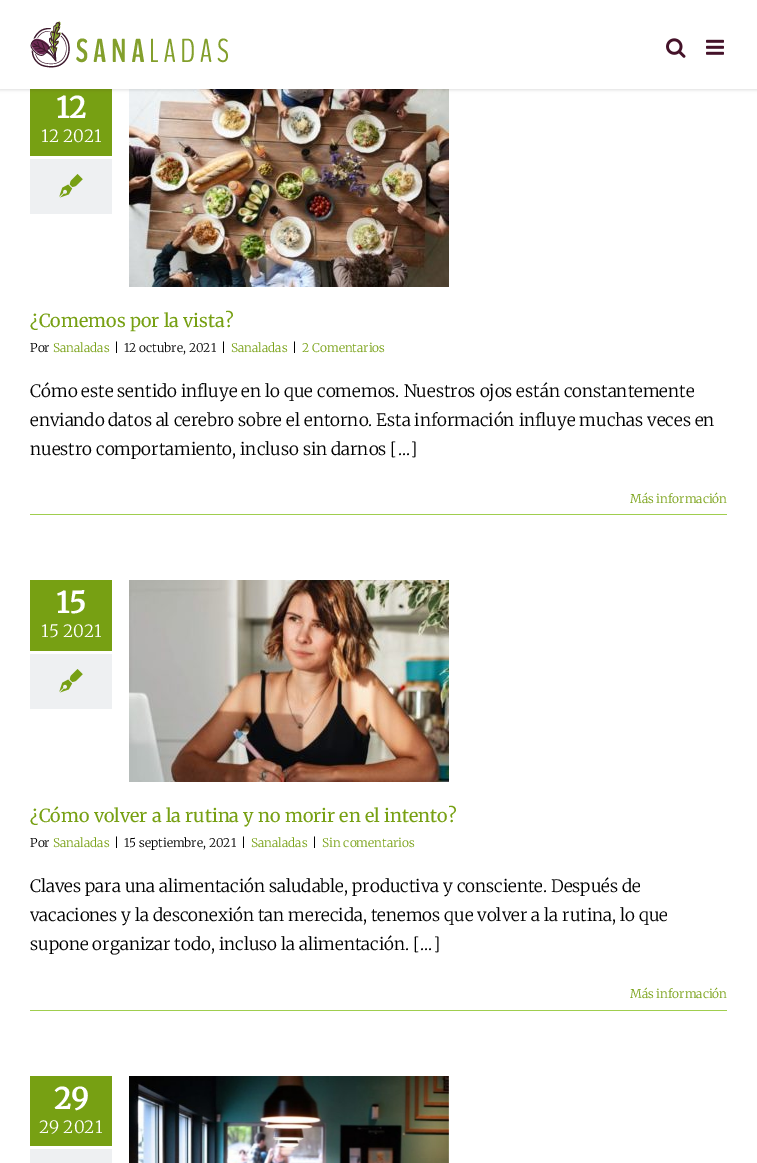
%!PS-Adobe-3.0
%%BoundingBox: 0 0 757 1163
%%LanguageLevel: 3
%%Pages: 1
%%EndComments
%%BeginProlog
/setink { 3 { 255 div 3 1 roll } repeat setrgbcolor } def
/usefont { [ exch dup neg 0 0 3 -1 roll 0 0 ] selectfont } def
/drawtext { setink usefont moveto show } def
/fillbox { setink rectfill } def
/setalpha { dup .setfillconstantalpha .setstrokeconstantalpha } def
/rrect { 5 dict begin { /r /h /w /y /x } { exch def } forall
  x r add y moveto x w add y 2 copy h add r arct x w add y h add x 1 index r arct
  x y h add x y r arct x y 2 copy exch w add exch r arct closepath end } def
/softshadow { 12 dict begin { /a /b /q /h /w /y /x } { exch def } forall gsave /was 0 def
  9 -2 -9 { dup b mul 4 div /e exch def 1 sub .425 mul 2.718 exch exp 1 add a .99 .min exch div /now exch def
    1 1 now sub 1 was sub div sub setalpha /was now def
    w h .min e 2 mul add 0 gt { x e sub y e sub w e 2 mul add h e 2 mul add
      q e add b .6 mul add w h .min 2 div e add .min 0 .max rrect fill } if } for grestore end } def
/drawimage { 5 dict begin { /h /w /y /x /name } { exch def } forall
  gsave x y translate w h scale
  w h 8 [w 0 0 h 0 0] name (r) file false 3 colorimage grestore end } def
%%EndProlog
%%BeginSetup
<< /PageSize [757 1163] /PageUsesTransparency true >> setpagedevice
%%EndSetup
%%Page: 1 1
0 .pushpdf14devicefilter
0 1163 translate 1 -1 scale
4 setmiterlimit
0 0 757 1163 255 255 255 fillbox
30 89 82 67 119 160 19 fillbox
(assets/img5.rgb) 129 89 320 198 drawimage
0 0 0 setink
0 1 757 89 0 1.5 0.12 softshadow
0 0 757 89 255 255 255 fillbox
(assets/img1.rgb) 30 21 198 47 drawimage
(assets/img2.rgb) 666 38 20 20 drawimage
(assets/img3.rgb) 706 39 18 16 drawimage
(12) 56 118 /Merriweather-Bold 29 255 255 255 drawtext
(12 2021) 41 142 /Merriweather-Light 17 255 255 255 drawtext
30 159 82 55 238 240 242 fillbox
(assets/img4.rgb) 59 174 24 24 drawimage
(¿Comemos por la vista?) 30 327 /Merriweather-Regular 18 119 160 19 drawtext
(Por) 30 352 /Merriweather-Light 12 0 0 0 drawtext
(Sanaladas) 53 352 /Merriweather-Light 12 119 160 19 drawtext
(|) 114 352 /Merriweather-Light 12 0 0 0 drawtext
(12 octubre, 2021) 124 352 /Merriweather-Light 12 0 0 0 drawtext
(|) 221 352 /Merriweather-Light 12 0 0 0 drawtext
(Sanaladas) 231 352 /Merriweather-Light 12 119 160 19 drawtext
(|) 292 352 /Merriweather-Light 12 0 0 0 drawtext
(2 Comentarios) 302 352 /Merriweather-Light 12 119 160 19 drawtext
(Cómo este sentido influye en lo que comemos. Nuestros ojos están constantemente) 30 397 /Merriweather-Light 17 0 0 0 drawtext
(enviando datos al cerebro sobre el entorno. Esta información influye muchas veces en) 30 426 /Merriweather-Light 17 0 0 0 drawtext
(nuestro comportamiento, incluso sin darnos [...]) 30 455 /Merriweather-Light 17 0 0 0 drawtext
30 514 697 1 160 206 78 fillbox
(Más información) 630 503 /Merriweather-Light 12 119 160 19 drawtext
30 580 82 71 119 160 19 fillbox
(15) 56 613 /Merriweather-Bold 29 255 255 255 drawtext
(15 2021) 41 637 /Merriweather-Light 17 255 255 255 drawtext
30 654 82 55 238 240 242 fillbox
(assets/img4.rgb) 59 669 24 24 drawimage
(assets/img6.rgb) 129 580 320 202 drawimage
(¿Cómo volver a la rutina y no morir en el intento?) 30 822 /Merriweather-Regular 18 119 160 19 drawtext
(Por) 30 847 /Merriweather-Light 12 0 0 0 drawtext
(Sanaladas) 53 847 /Merriweather-Light 12 119 160 19 drawtext
(|) 114 847 /Merriweather-Light 12 0 0 0 drawtext
(15 septiembre, 2021) 124 847 /Merriweather-Light 12 0 0 0 drawtext
(|) 241 847 /Merriweather-Light 12 0 0 0 drawtext
(Sanaladas) 251 847 /Merriweather-Light 12 119 160 19 drawtext
(|) 312 847 /Merriweather-Light 12 0 0 0 drawtext
(Sin comentarios) 322 847 /Merriweather-Light 12 119 160 19 drawtext
(Claves para una alimentación saludable, productiva y consciente. Después de) 30 892 /Merriweather-Light 17 0 0 0 drawtext
(vacaciones y la desconexión tan merecida, tenemos que volver a la rutina, lo que) 30 921 /Merriweather-Light 17 0 0 0 drawtext
(supone organizar todo, incluso la alimentación. [...]) 30 950 /Merriweather-Light 17 0 0 0 drawtext
30 1010 697 1 160 206 78 fillbox
(Más información) 630 998 /Merriweather-Light 12 119 160 19 drawtext
30 1076 82 70 119 160 19 fillbox
(29) 54 1109 /Merriweather-Bold 29 255 255 255 drawtext
(29 2021) 39 1133 /Merriweather-Light 17 255 255 255 drawtext
30 1149 82 14 238 240 242 fillbox
(assets/img7.rgb) 129 1076 320 87 drawimage
.poppdf14devicefilter showpage
%%EOF
